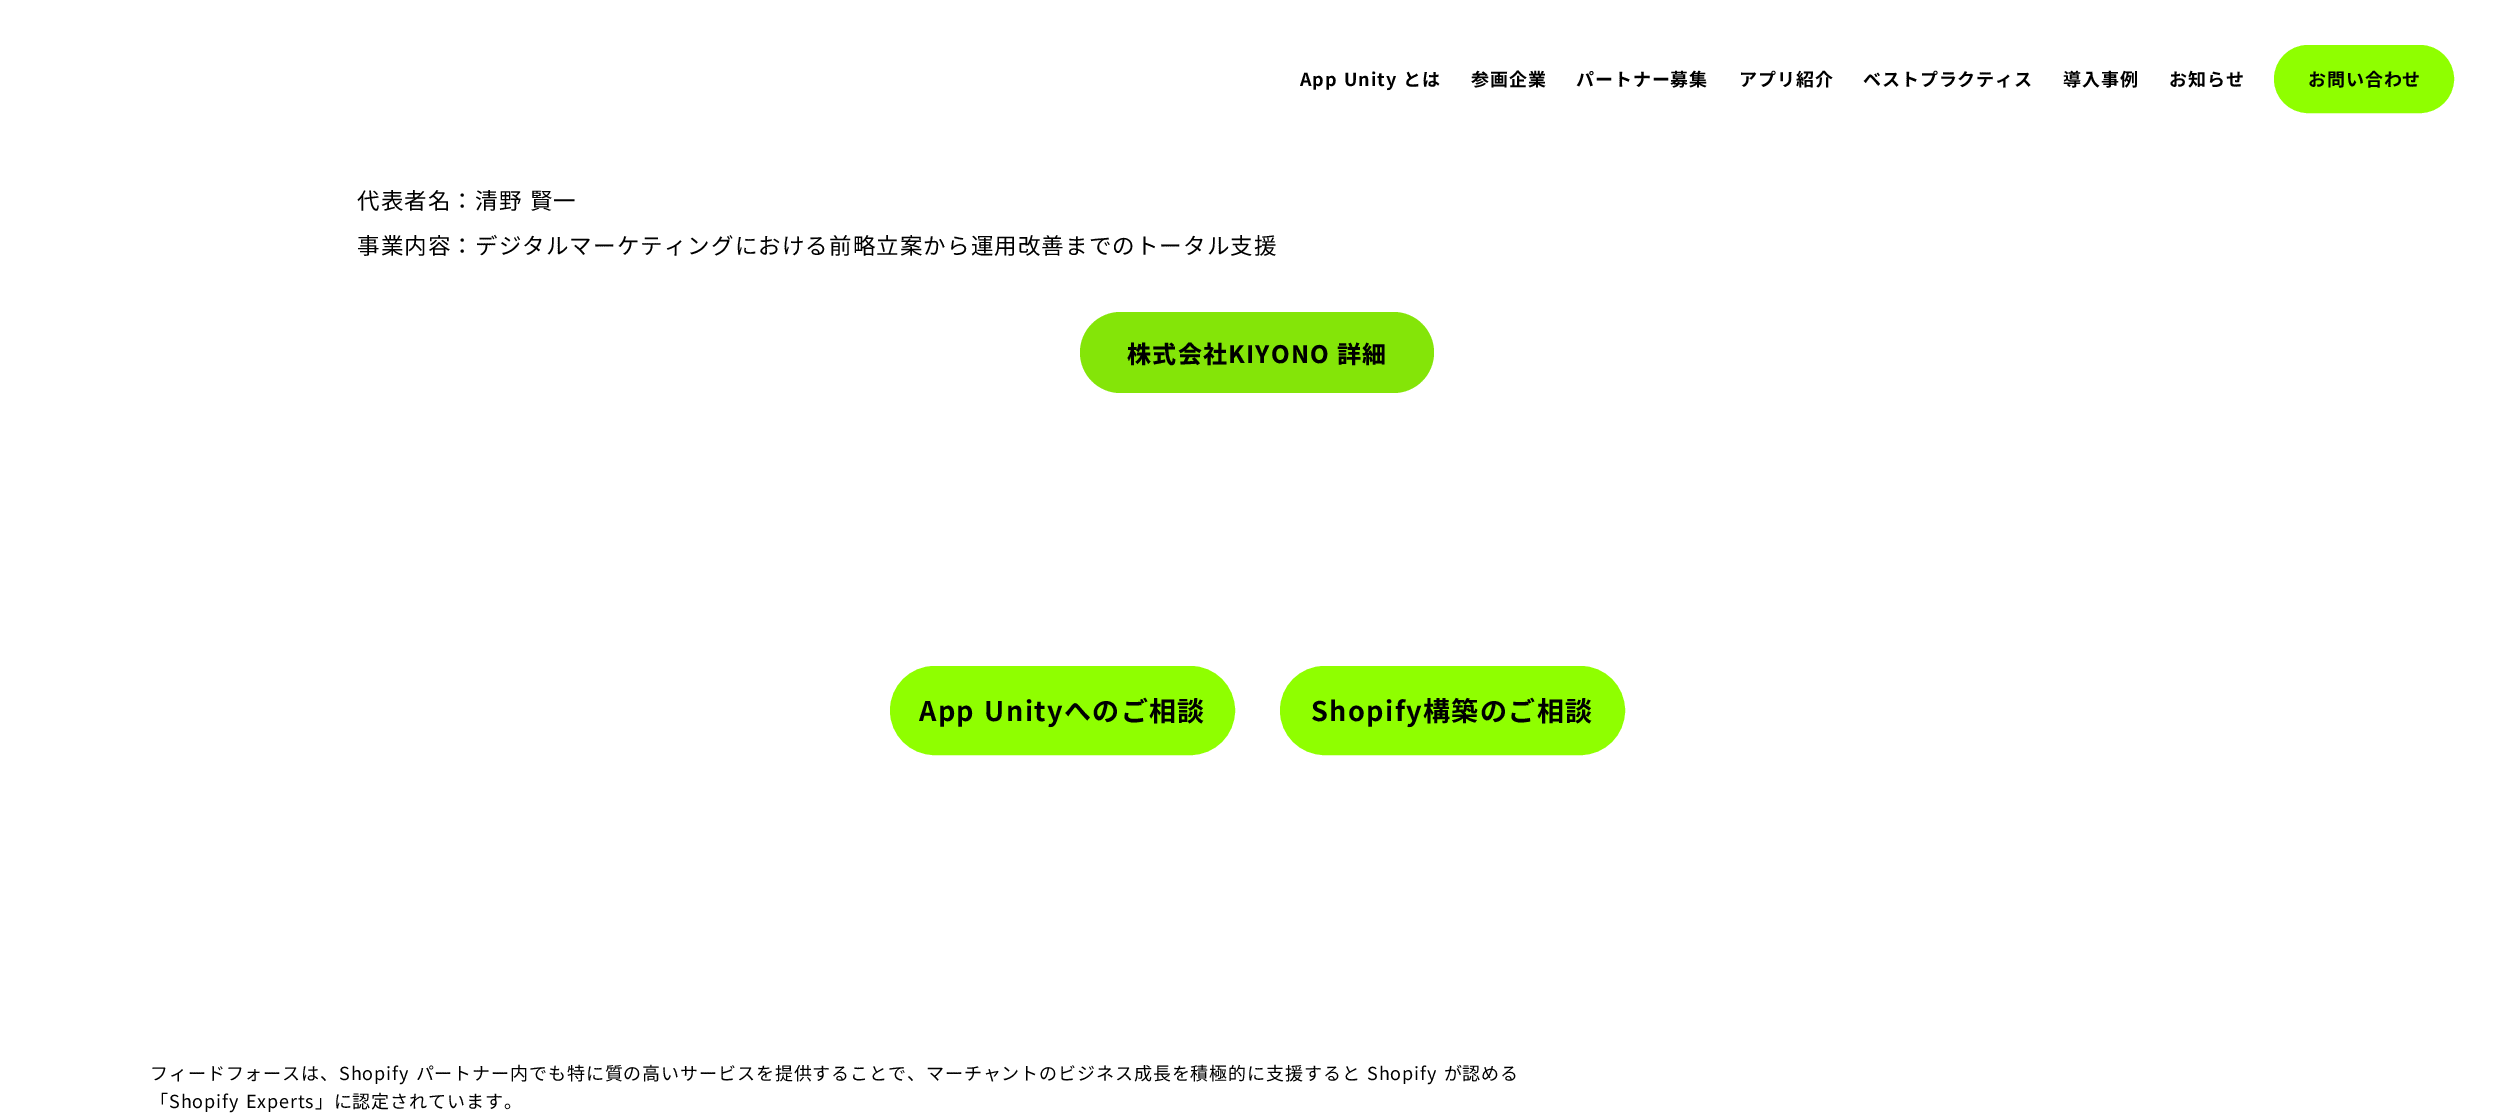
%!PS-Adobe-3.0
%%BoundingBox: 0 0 2513 1120
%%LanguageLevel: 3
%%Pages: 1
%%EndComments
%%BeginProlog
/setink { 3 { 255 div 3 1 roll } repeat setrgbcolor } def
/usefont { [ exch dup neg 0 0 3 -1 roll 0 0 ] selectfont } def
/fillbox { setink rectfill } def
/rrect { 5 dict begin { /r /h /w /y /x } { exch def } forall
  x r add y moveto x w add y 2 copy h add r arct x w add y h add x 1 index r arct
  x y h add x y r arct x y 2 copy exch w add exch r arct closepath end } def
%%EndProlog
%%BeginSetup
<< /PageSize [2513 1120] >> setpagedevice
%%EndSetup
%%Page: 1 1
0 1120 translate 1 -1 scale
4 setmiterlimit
0 0 2513 1120 255 255 255 fillbox
/NotoSansJP-Bold 18 usefont
0 0 0 setink
1300 86 moveto 1.5 0 32 0.9 0 (App Unity とは) awidthshow
1471 86 moveto 0.9 0 (参画企業) ashow
1576 86 moveto 0.9 0 (パートナー募集) ashow
1739 86 moveto 0.9 0 (アプリ紹介) ashow
1863 86 moveto 0.9 0 (ベストプラクティス) ashow
2063 86 moveto 0.9 0 (導入事例) ashow
2169 86 moveto 0.9 0 (お知らせ) ashow
143 255 0 setink
2275.5 46.5 177 65 32.5 rrect gsave fill grestore
3 setlinewidth
stroke
0 0 0 setink
2308 86 moveto 0.9 0 (お問い合わせ) ashow
/NotoSansJP-Regular 22.5 usefont
357 209 moveto 1.5 0 32 1.1 0 (代表者名：清野 賢一) awidthshow
357 254 moveto 1.1 0 (事業内容：デジタルマーケティングにおける前略立案から運用改善までのトータル支援) ashow
132 229 8 setink
1080 312 354 81 40.5 rrect fill
/NotoSansJP-ExtraBold 24 usefont
0 0 0 setink
1127 363 moveto 1.25 0 (株式会社KIYONO 詳細) ashow
143 255 0 setink
891.5 667.5 342 86 43 rrect gsave fill grestore
stroke
/NotoSansJP-Bold 27 usefont
0 0 0 setink
919 721 moveto 1.5 0 32 1.4 0 (App Unityへのご相談) awidthshow
143 255 0 setink
1281.5 667.5 342 86 43 rrect gsave fill grestore
stroke
0 0 0 setink
1311 721 moveto 1.4 0 (Shopify構築のご相談) ashow
/NotoSansJP-Regular 18 usefont
150 1080 moveto 1.5 0 32 0.9 0 (フィードフォースは、Shopify パートナー内でも特に質の高いサービスを提供することで、マーチャントのビジネス成長を積極的に支援すると Shopify が認める) awidthshow
150 1108 moveto 1.5 0 32 0.9 0 (「Shopify Experts」に認定されています。) awidthshow
showpage
%%EOF
